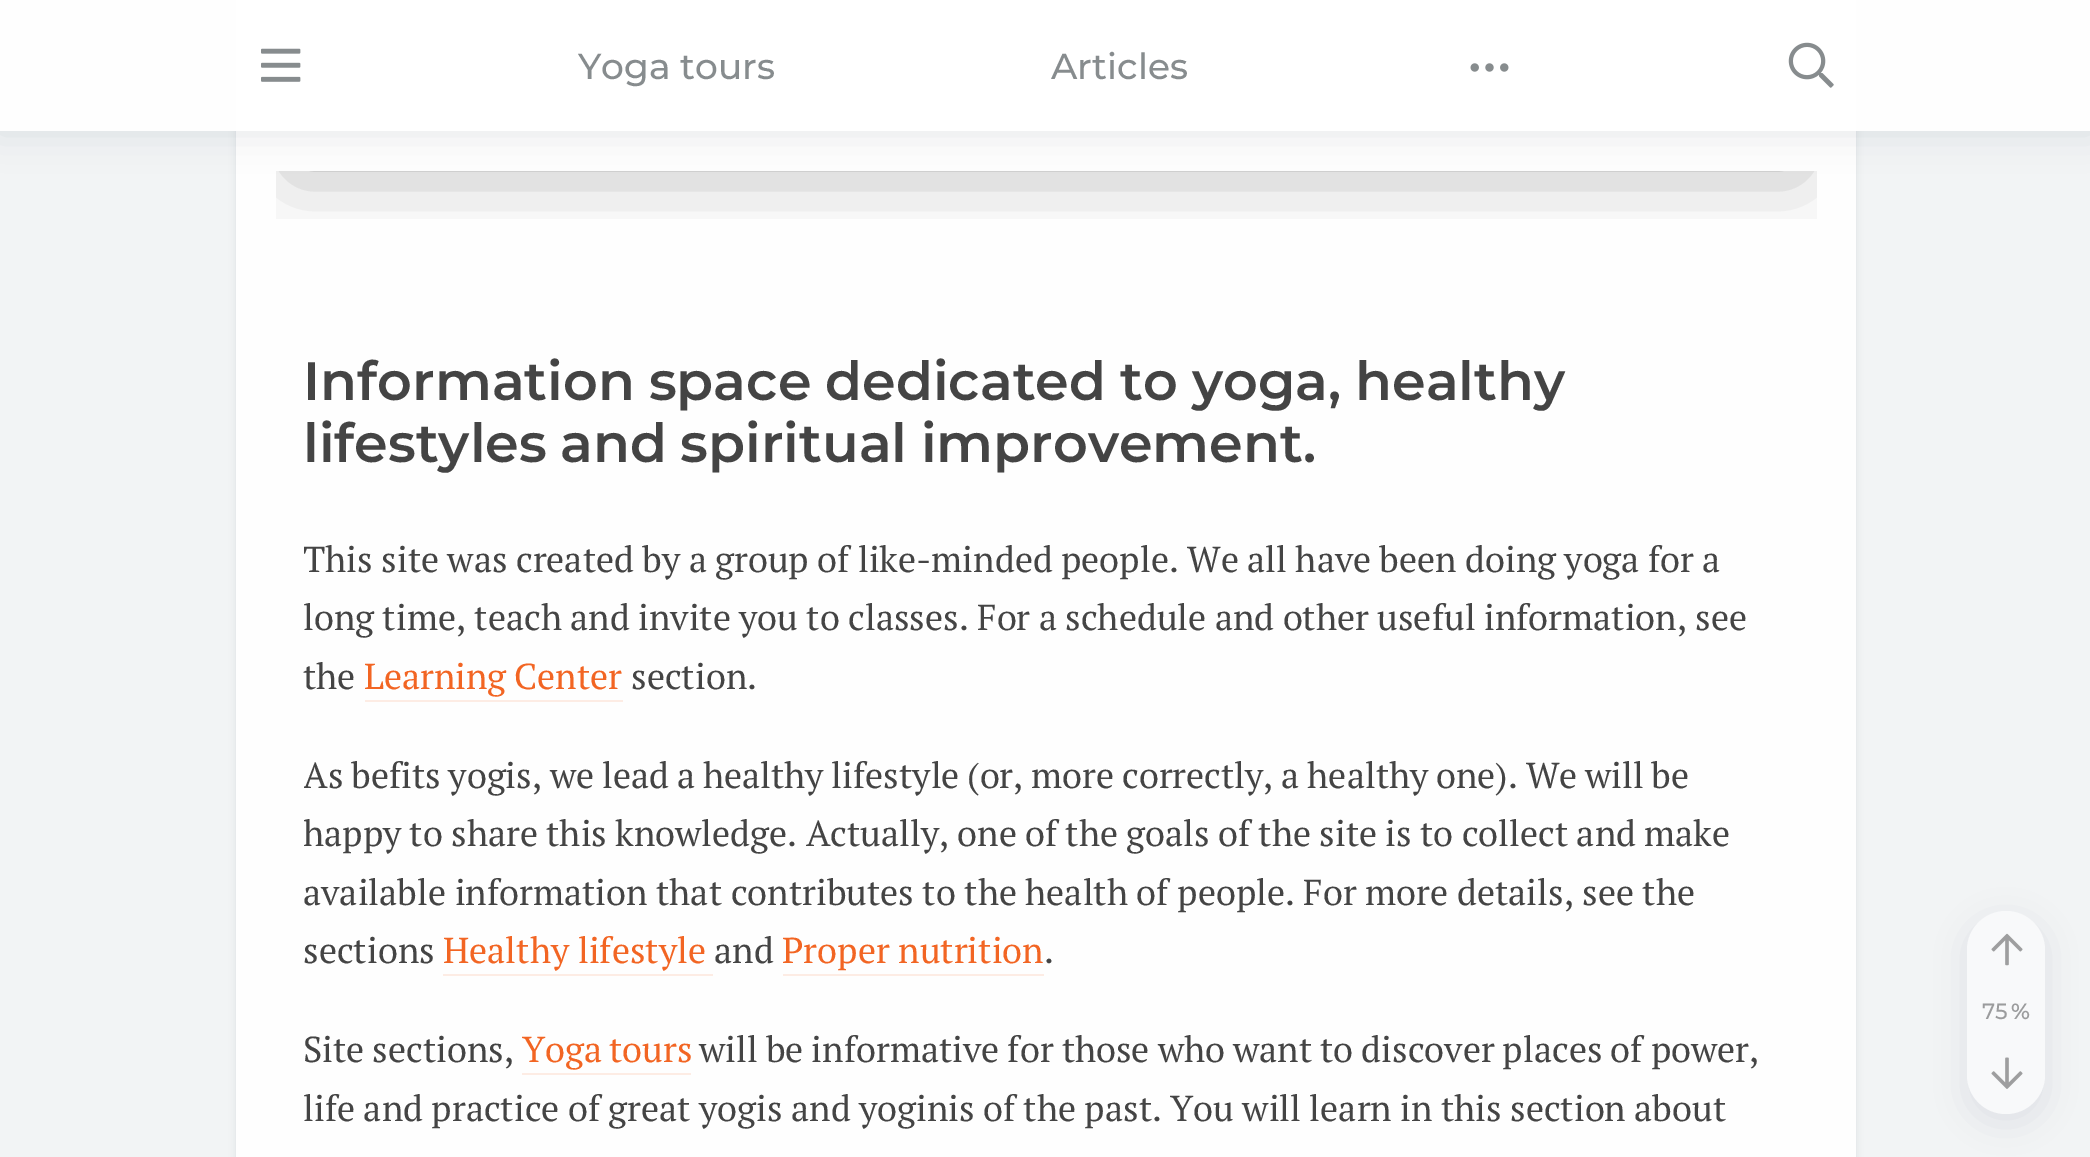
%!PS-Adobe-3.0
%%BoundingBox: 0 0 2090 1157
%%LanguageLevel: 3
%%Pages: 1
%%EndComments
%%BeginProlog
/setink { 3 { 255 div 3 1 roll } repeat setrgbcolor } def
/usefont { [ exch dup neg 0 0 3 -1 roll 0 0 ] selectfont } def
/drawtext { setink usefont moveto show } def
/fillbox { setink rectfill } def
/setalpha { dup .setfillconstantalpha .setstrokeconstantalpha } def
/rrect { 5 dict begin { /r /h /w /y /x } { exch def } forall
  x r add y moveto x w add y 2 copy h add r arct x w add y h add x 1 index r arct
  x y h add x y r arct x y 2 copy exch w add exch r arct closepath end } def
/softshadow { 12 dict begin { /a /b /q /h /w /y /x } { exch def } forall gsave /was 0 def
  9 -2 -9 { dup b mul 4 div /e exch def 1 sub .425 mul 2.718 exch exp 1 add a .99 .min exch div /now exch def
    1 1 now sub 1 was sub div sub setalpha /was now def
    w h .min e 2 mul add 0 gt { x e sub y e sub w e 2 mul add h e 2 mul add
      q e add b .6 mul add w h .min 2 div e add .min 0 .max rrect fill } if } for grestore end } def
/drawimage { 5 dict begin { /h /w /y /x /name } { exch def } forall
  gsave x y translate w h scale
  w h 8 [w 0 0 h 0 0] name (r) file false 3 colorimage grestore end } def
%%EndProlog
%%BeginSetup
<< /PageSize [2090 1157] /PageUsesTransparency true >> setpagedevice
%%EndSetup
%%Page: 1 1
0 .pushpdf14devicefilter
0 1157 translate 1 -1 scale
4 setmiterlimit
0 0 2090 1157 242 244 245 fillbox
222 225 227 setink
236 -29 1620 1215 18 3.5 1 softshadow
236 0 1620 1157 254 254 254 fillbox
gsave
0 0 moveto 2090 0 lineto 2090 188 lineto 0 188 lineto closepath 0 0 moveto 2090 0 lineto 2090 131 lineto 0 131 lineto closepath eoclip newpath
0 26 52 setink
-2 -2 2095 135 0 18 0.1 softshadow
grestore
gsave
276 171 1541 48 rectclip
0 0 0 setink
302 135 1489 27 0 39.5 0.35 softshadow
grestore
0.95 setalpha
0 0 2090 131 255 255 255 fillbox
1 setalpha
(assets/img1.rgb) 261 48 40 34 drawimage
(Yoga tours) 578 79 /Montserrat-Medium 36 135 140 142 drawtext
(Articles) 1051 79 /Montserrat-Medium 36 135 140 142 drawtext
(assets/img2.rgb) 1470 63 39 9 drawimage
(assets/img3.rgb) 1788 42 46 46 drawimage
/Montserrat-SemiBold 54 usefont
68 68 68 setink
303 400 moveto -1 0 32 (Information space dedicated to yoga, healthy) widthshow
303 462 moveto -1.5 0 32 (lifestyles and spiritual improvement.) widthshow
gsave
304 351 1485 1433 rectclip
/PTSerif-Regular 36 usefont
303 572 moveto -0.4 0 32 (This site was created by a group of like-minded people. We all have been doing yoga for a) widthshow
grestore
/PTSerif-Regular 36 usefont
303 630 moveto -0.4 0 32 (long time, teach and invite you to classes. For a schedule and other useful information, see) widthshow
(the) 303 689 /PTSerif-Regular 36 68 68 68 drawtext
242 101 35 setink
364 689 moveto -1 0 32 (Learning Center) widthshow
365 700 258 2 253 236 228 fillbox
(section.) 631 689 /PTSerif-Regular 36 68 68 68 drawtext
gsave
304 351 1485 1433 rectclip
303 788 moveto -1 0 32 (As befits yogis, we lead a healthy lifestyle \(or, more correctly, a healthy one\). We will be) widthshow
303 846 moveto -0.5 0 32 (happy to share this knowledge. Actually, one of the goals of the site is to collect and make) widthshow
grestore
303 905 moveto -0.25 0 32 (available information that contributes to the health of people. For more details, see the) widthshow
(sections) 303 963 /PTSerif-Regular 36 68 68 68 drawtext
(Healthy lifestyle) 443 963 /PTSerif-Regular 36 242 101 35 drawtext
443 974 270 2 253 236 228 fillbox
(and) 714 963 /PTSerif-Regular 36 68 68 68 drawtext
(Proper nutrition) 782 963 /PTSerif-Regular 36 242 101 35 drawtext
783 974 261 2 253 236 228 fillbox
(.) 1044 963 /PTSerif-Regular 36 68 68 68 drawtext
303 1062 moveto -1 0 32 (Site sections,) widthshow
242 101 35 setink
522 1062 moveto -2 0 32 (Yoga tours) widthshow
522 1073 169 2 253 236 228 fillbox
68 68 68 setink
699 1062 moveto -0.75 0 32 (will be informative for those who want to discover places of power,) widthshow
303 1121 moveto -0.4 0 32 (life and practice of great yogis and yoginis of the past. You will learn in this section about) widthshow
121 135 149 setink
1964 918 84 207 42 18 0.16 softshadow
248 249 250 setink
1967 911 78 203 39 rrect fill
(assets/img4.rgb) 1991 933 32 33 drawimage
(75) 1982 1019 /Montserrat-Medium 22 155 156 157 drawtext
(%) 2011 1019 /Montserrat-SemiBold 22 155 156 157 drawtext
(assets/img5.rgb) 1991 1057 32 32 drawimage
.poppdf14devicefilter showpage
%%EOF
